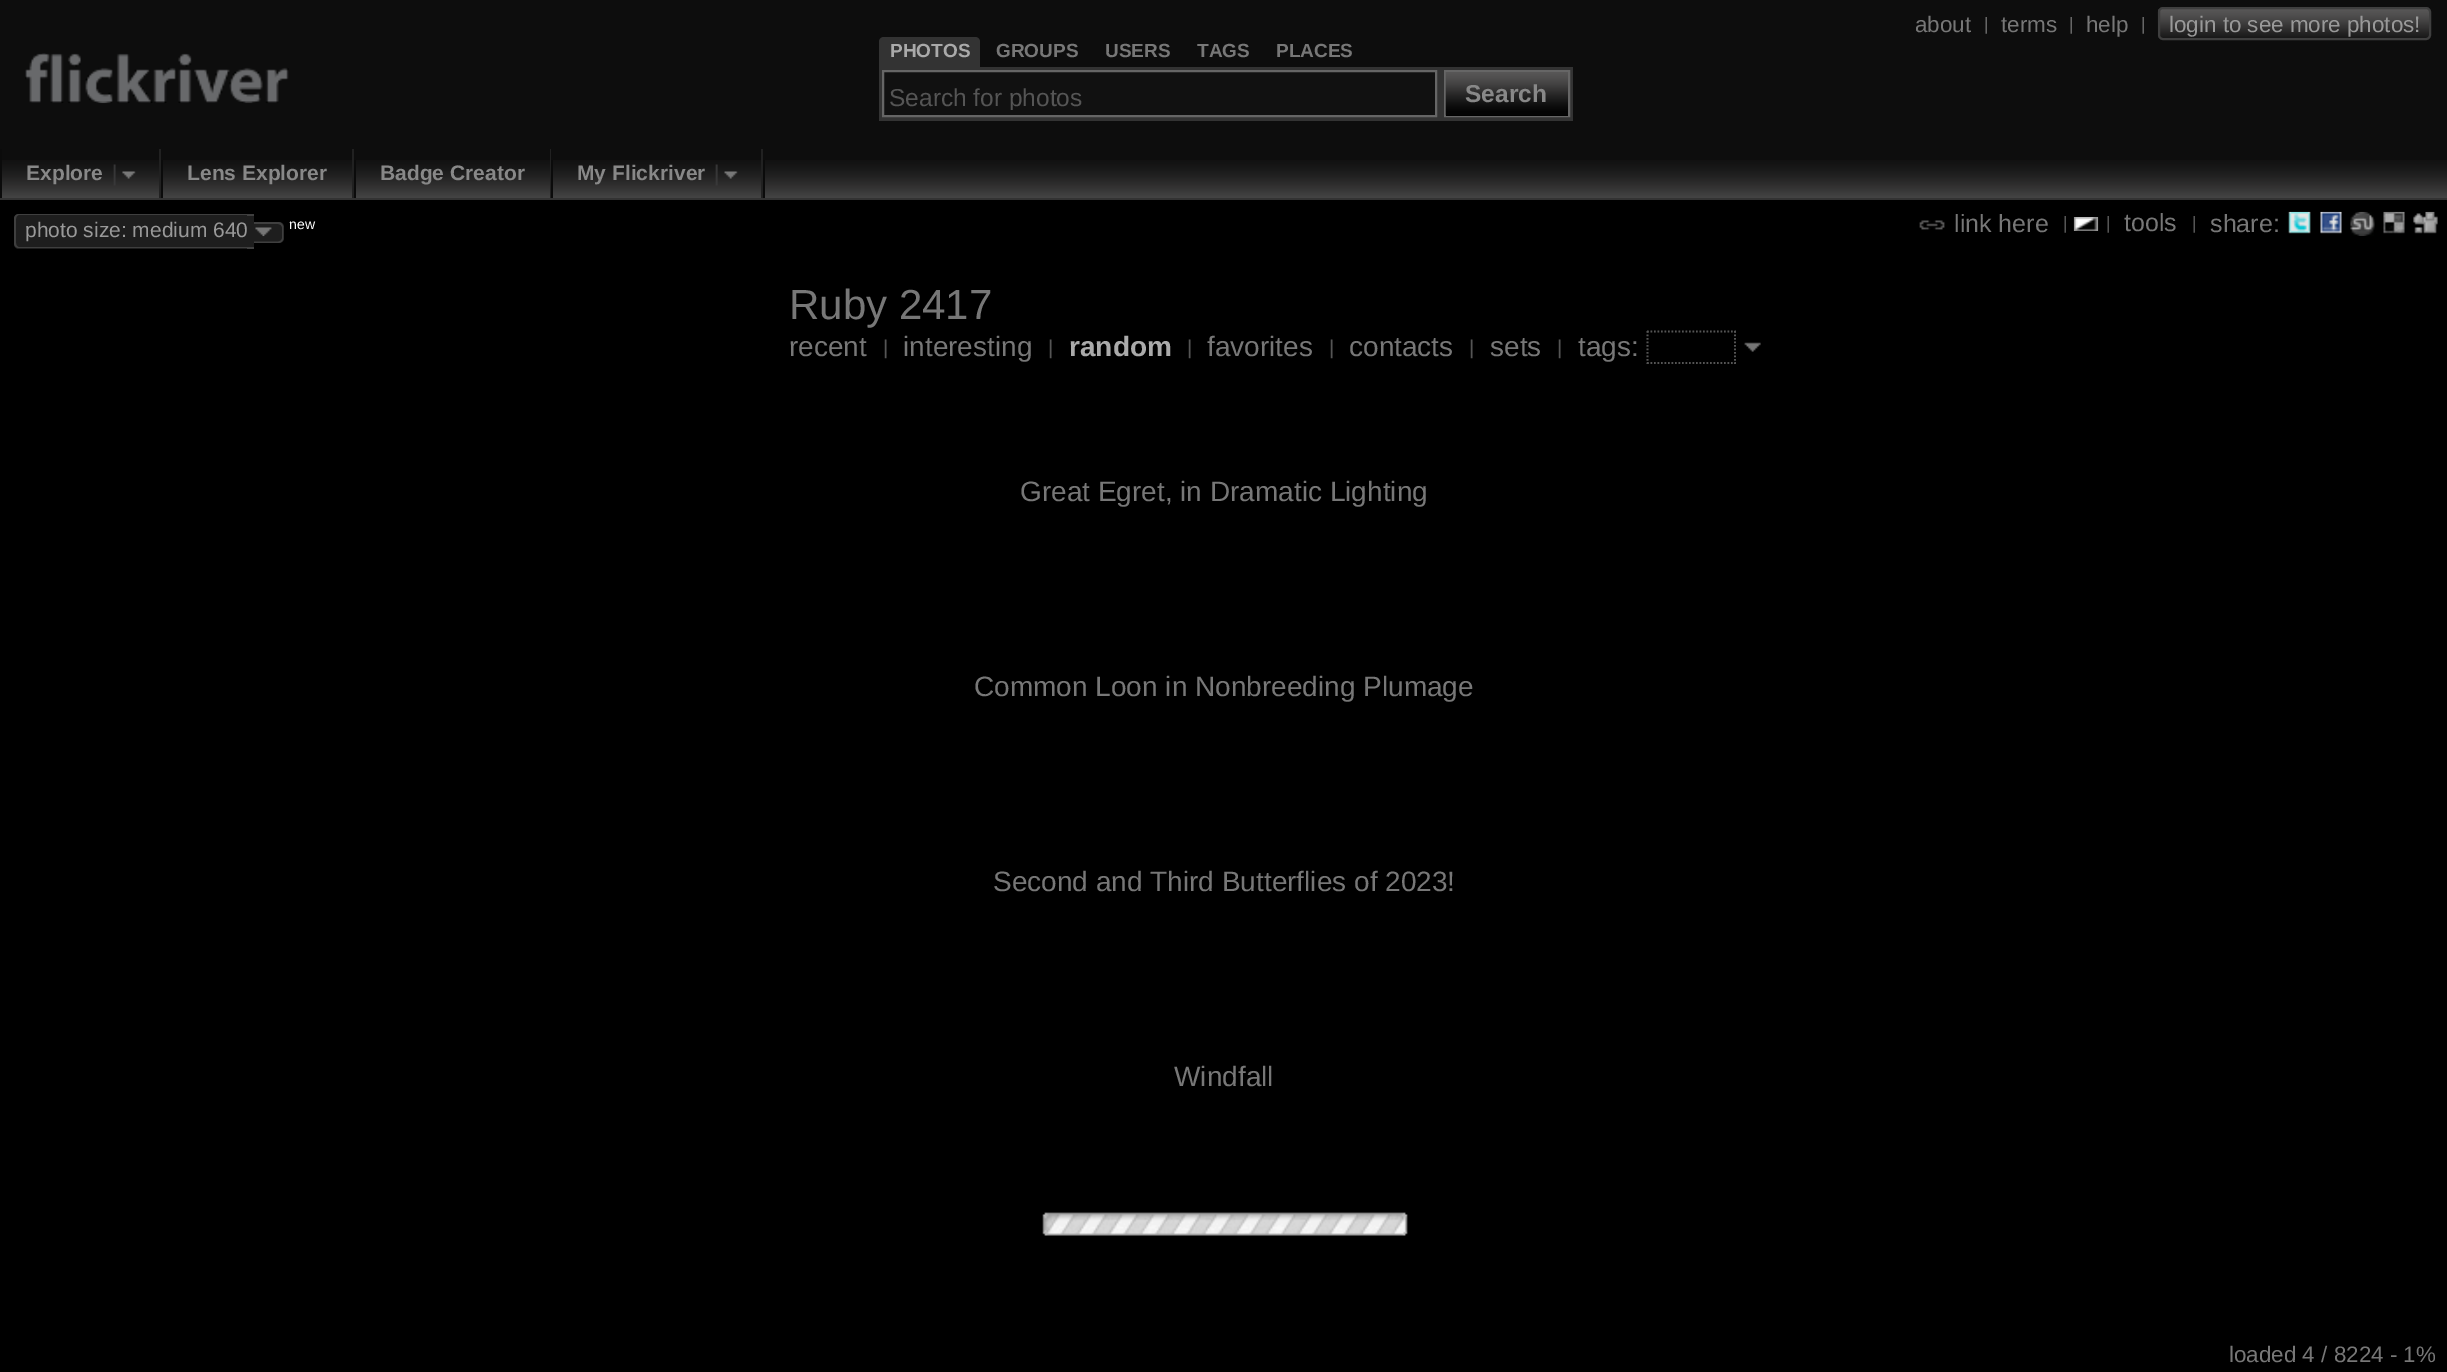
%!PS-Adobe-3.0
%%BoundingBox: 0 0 2447 1372
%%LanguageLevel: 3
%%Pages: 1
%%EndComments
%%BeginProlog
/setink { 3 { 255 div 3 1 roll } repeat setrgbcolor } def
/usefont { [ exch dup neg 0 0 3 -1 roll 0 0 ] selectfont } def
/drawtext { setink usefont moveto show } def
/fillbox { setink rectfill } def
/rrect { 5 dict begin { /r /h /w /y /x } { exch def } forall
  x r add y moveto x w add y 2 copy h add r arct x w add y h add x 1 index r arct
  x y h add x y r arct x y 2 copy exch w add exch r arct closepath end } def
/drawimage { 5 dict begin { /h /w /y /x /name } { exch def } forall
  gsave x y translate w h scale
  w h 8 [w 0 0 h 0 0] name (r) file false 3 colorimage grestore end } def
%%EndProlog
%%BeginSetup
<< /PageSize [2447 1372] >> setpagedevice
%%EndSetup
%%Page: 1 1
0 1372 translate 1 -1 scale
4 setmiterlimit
0 0 2447 1372 0 0 0 fillbox
0 0 2447 149 13 13 13 fillbox
(about) 1915 32 /LiberationSans-Regular 22.4 119 119 119 drawtext
(help) 2086 32 /LiberationSans-Regular 22.4 119 119 119 drawtext
(assets/img1.rgb) 2157 8 274 32 drawimage
(|) 1984 30 /LiberationSans-Regular 18 102 102 102 drawtext
(terms) 2001 32 /LiberationSans-Regular 22.4 119 119 119 drawtext
(|) 2069 30 /LiberationSans-Regular 18 102 102 102 drawtext
(|) 2141 30 /LiberationSans-Regular 18 102 102 102 drawtext
63 63 63 setink
2 setlinewidth
2159 8 271 31 4 rrect stroke
(login to see more photos!) 2169 32 /LiberationSans-Regular 22.4 153 153 153 drawtext
(assets/img2.rgb) 25 53 264 51 drawimage
51 51 51 setink
884 37 moveto 975 37 lineto 978 37 980 39 980 42 curveto 980 67 lineto 879 67 lineto 879 42 lineto 879 39 881 37 884 37 curveto closepath fill
(PHOTOS) 890 57 /LiberationSans-Bold 19 170 170 170 drawtext
(GROUPS) 996 57 /LiberationSans-Bold 19 119 119 119 drawtext
(USERS) 1105 57 /LiberationSans-Bold 19 119 119 119 drawtext
(TAGS) 1197 57 /LiberationSans-Bold 19 119 119 119 drawtext
(PLACES) 1276 57 /LiberationSans-Bold 19 119 119 119 drawtext
879 67 694 54 51 51 51 fillbox
17 17 17 setink
883 71 moveto 1436 71 lineto 1436 116 lineto 883 116 lineto closepath gsave fill grestore
102 102 102 setink
stroke
gsave
889 82 539 28 rectclip
(Search for photos) 889 106 /LiberationSans-Regular 24.5 85 85 85 drawtext
grestore
1445 71 124 45 rectstroke
1446 115 122 1 0 0 0 fillbox
(assets/img3.rgb) 1445 72 123 44 drawimage
(Search) 1465 102 /LiberationSans-Bold 24.5 136 136 136 drawtext
2 149 2445 11 13 13 13 fillbox
(assets/img4.rgb) 2 160 2445 38 drawimage
0 198 2447 2 51 51 51 fillbox
763 160 2 38 11 11 11 fillbox
159 149 2 49 33 33 33 fillbox
0 149 2 49 11 11 11 fillbox
(Explore) 26 180 /LiberationSans-Bold 21 136 136 136 drawtext
(assets/img5.rgb) 113 164 23 22 drawimage
352 149 2 49 33 33 33 fillbox
161 160 2 38 11 11 11 fillbox
(Lens Explorer) 187 180 /LiberationSans-Bold 21 136 136 136 drawtext
550 149 1 49 33 33 33 fillbox
354 160 2 38 11 11 11 fillbox
(Badge Creator) 380 180 /LiberationSans-Bold 21 136 136 136 drawtext
761 149 2 49 33 33 33 fillbox
551 160 2 38 11 11 11 fillbox
(My Flickriver) 577 180 /LiberationSans-Bold 21 136 136 136 drawtext
(assets/img6.rgb) 715 164 23 22 drawimage
30 30 30 setink
19 214 moveto 247 214 lineto 247 249 lineto 19 249 lineto 16 249 14 247 14 244 curveto 14 219 lineto 14 216 16 214 19 214 curveto closepath fill
63 63 63 setink
19 214 moveto 247 214 lineto 247 248 lineto 19 248 lineto 16 248 14 246 14 243 curveto 14 219 lineto 14 216 16 214 19 214 curveto closepath 19 215 moveto 247 215 lineto 247 247 lineto 19 247 lineto 17 247 16 245 16 243 curveto 16 219 lineto 16 217 17 215 19 215 curveto closepath eofill
(photo size: medium 640) 25 237 /LiberationSans-Regular 21 153 153 153 drawtext
247 214 7 35 30 30 30 fillbox
247 214 7 2 63 63 63 fillbox
247 247 7 2 63 63 63 fillbox
30 30 30 setink
254 222 moveto 279 222 lineto 282 222 284 224 284 227 curveto 284 238 lineto 284 241 282 243 279 243 curveto 254 243 lineto closepath fill
63 63 63 setink
254 222 moveto 278 222 lineto 281 222 283.5 224.5 283.5 227.5 curveto 283.5 238 lineto 283.5 241 281 243 278 243 curveto 254 243 lineto closepath 254 224 moveto 278 224 lineto 280 224 282 225.5 282 227.5 curveto 282 238 lineto 282 240 280 241.5 278 241.5 curveto 254 241.5 lineto closepath eofill
(new) 289 229 /LiberationSans-Regular 14 255 255 255 drawtext
(assets/img7.rgb) 255 227 17 10 drawimage
(assets/img8.rgb) 1919 220 26 10 drawimage
(link here) 1954 232 /LiberationSans-Regular 25 119 119 119 drawtext
(|) 2063 229 /LiberationSans-Regular 18 85 85 85 drawtext
(assets/img9.rgb) 2073 217 26 14 drawimage
(|) 2106 229 /LiberationSans-Regular 18 85 85 85 drawtext
(tools) 2124 231 /LiberationSans-Regular 25 119 119 119 drawtext
(|) 2192 229 /LiberationSans-Regular 18 85 85 85 drawtext
(share:) 2210 232 /LiberationSans-Regular 25 119 119 119 drawtext
(assets/img10.rgb) 2288 211 23 23 drawimage
(assets/img11.rgb) 2320 211 22 23 drawimage
(assets/img12.rgb) 2350 211 25 25 drawimage
(assets/img13.rgb) 2383 211 22 23 drawimage
(assets/img14.rgb) 2413 211 25 23 drawimage
(Ruby 2417) 789 319 /LiberationSans-Regular 42 119 119 119 drawtext
(recent) 789 356 /LiberationSans-Regular 28 119 119 119 drawtext
(|) 883 354 /LiberationSans-Regular 20 85 85 85 drawtext
(interesting) 903 356 /LiberationSans-Regular 28 119 119 119 drawtext
(|) 1048 354 /LiberationSans-Regular 20 85 85 85 drawtext
(random) 1069 356 /LiberationSans-Bold 28 170 170 170 drawtext
(|) 1187 354 /LiberationSans-Regular 20 85 85 85 drawtext
(favorites) 1207 356 /LiberationSans-Regular 28 119 119 119 drawtext
(|) 1329 354 /LiberationSans-Regular 20 85 85 85 drawtext
(contacts) 1349 356 /LiberationSans-Regular 28 119 119 119 drawtext
(|) 1469 354 /LiberationSans-Regular 20 85 85 85 drawtext
(sets) 1490 356 /LiberationSans-Regular 28 119 119 119 drawtext
(|) 1557 354 /LiberationSans-Regular 20 85 85 85 drawtext
(tags:) 1578 356 /LiberationSans-Regular 28 119 119 119 drawtext
85 85 85 setink
1.8 setlinewidth
[1.75 1.75] 0 setdash
1647 331.5 moveto 1736 331.5 lineto stroke
1735 331 moveto 1735 364 lineto stroke
1647 363 moveto 1736 363 lineto stroke
1647.5 331 moveto 1647.5 364 lineto stroke
(assets/img15.rgb) 1744 342 17 10 drawimage
(Great Egret, in Dramatic Lighting) 1020 501 /LiberationSans-Regular 28 119 119 119 drawtext
(Common Loon in Nonbreeding Plumage) 974 696 /LiberationSans-Regular 28 119 119 119 drawtext
(Second and Third Butterflies of 2023!) 993 891 /LiberationSans-Regular 28 119 119 119 drawtext
(Windfall) 1174 1086 /LiberationSans-Regular 28 119 119 119 drawtext
(assets/img16.rgb) 1042 1212 366 24 drawimage
(loaded 4 / 8224 - 1%) 2229 1362 /LiberationSans-Regular 22.4 119 119 119 drawtext
showpage
%%EOF
